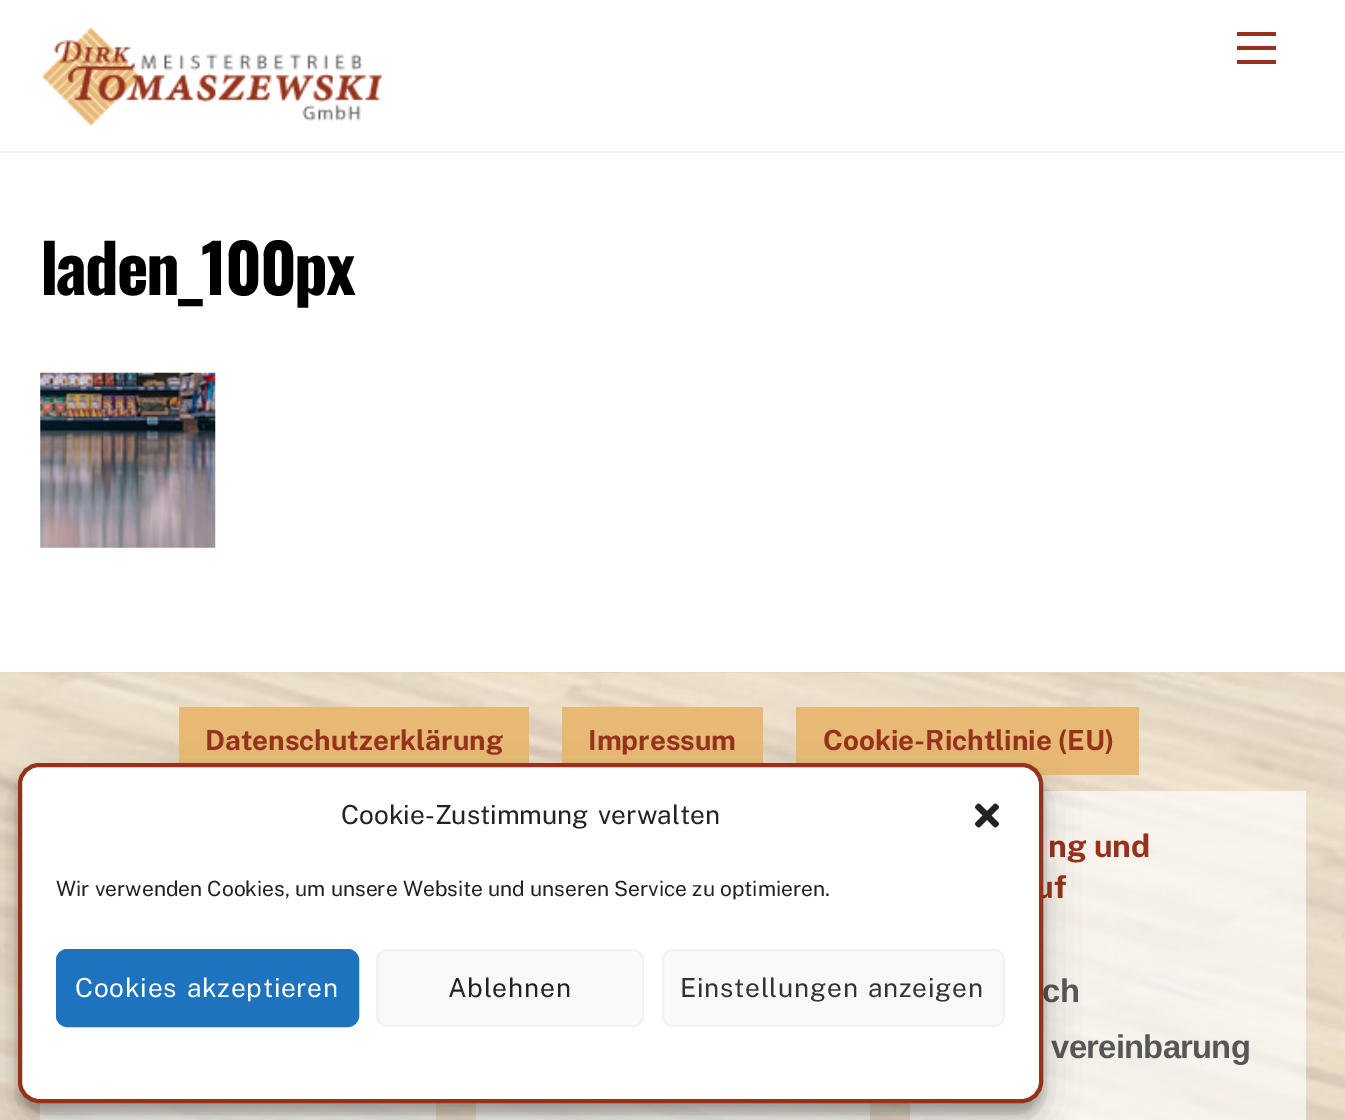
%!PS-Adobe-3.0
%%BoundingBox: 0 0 1345 1120
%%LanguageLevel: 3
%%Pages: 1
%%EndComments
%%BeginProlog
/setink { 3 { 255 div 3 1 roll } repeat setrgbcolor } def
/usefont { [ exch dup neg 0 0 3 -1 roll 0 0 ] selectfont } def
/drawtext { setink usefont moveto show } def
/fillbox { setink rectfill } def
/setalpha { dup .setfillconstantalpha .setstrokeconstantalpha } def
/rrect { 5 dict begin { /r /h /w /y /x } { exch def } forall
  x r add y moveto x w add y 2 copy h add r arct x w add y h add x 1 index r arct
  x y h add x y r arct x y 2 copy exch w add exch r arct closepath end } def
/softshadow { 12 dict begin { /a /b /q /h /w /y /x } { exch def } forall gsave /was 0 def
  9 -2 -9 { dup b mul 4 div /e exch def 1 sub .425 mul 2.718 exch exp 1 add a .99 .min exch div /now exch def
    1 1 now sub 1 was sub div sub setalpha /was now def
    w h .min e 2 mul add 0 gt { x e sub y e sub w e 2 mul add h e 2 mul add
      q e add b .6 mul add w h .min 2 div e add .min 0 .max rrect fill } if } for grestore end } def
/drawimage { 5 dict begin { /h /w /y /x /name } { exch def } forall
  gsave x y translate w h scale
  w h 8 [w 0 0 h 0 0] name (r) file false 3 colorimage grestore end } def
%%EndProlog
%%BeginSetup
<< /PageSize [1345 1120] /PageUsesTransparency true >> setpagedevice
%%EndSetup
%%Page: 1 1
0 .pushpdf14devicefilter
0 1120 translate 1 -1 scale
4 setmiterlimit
0 0 1345 1120 255 255 255 fillbox
0 151 1345 2 242 242 242 fillbox
(assets/img1.rgb) 41 27 341 99 drawimage
1237 60 39 4 149 50 28 fillbox
1237 32 39 4 149 50 28 fillbox
1237 46 39 4 149 50 28 fillbox
/Oswald-Bold 67 usefont
0 0 0 setink
40 295 moveto -2 0 (laden_100px) ashow
(assets/img2.rgb) 40 372 176 176 drawimage
(assets/img3.rgb) 0 672 1345 448 drawimage
179 707 350 56 232 185 117 fillbox
(Datenschutzerklärung) 205 750 /PublicSans-Bold 27.75 149 50 28 drawtext
562 707 201 56 232 185 117 fillbox
(Impressum) 588 750 /PublicSans-Bold 27.75 149 50 28 drawtext
796 707 343 68 232 185 117 fillbox
(Cookie-Richtlinie \(EU\)) 823 750 /PublicSans-Bold 27.75 149 50 28 drawtext
0.64 setalpha
910 791 396 329 255 255 255 fillbox
1 setalpha
(ng und) 1048 857 /PublicSans-Bold 31.5 149 50 28 drawtext
(uf) 1035 898 /PublicSans-Bold 31.5 149 50 28 drawtext
/LiberationSans-Bold 32.75 usefont
87 87 87 setink
1042 1002 moveto -0.7 0 (ch) ashow
1051 1058 moveto -0.7 0 (vereinbarung) ashow
0.64 setalpha
40 1103 396 17 255 255 255 fillbox
476 1103 394 17 255 255 255 fillbox
1 setalpha
0 0 0 setink
18 774 1025 339 21 5 0.23 softshadow
18 781 1025 339 21 17.5 0.19 softshadow
255 255 255 setink
20 765 1021 336 19 rrect gsave fill grestore
149 50 28 setink
4 setlinewidth
stroke
/PublicSans-Regular 26.25 usefont
34 34 34 setink
341 824 moveto 3 0 32 (Cookie-Zustimmung verwalten) widthshow
(assets/img4.rgb) 975 803 24 25 drawimage
(Wir verwenden Cookies, um unsere Website und unseren Service zu optimieren.) 56 896 /PublicSans-Regular 21 34 34 34 drawtext
30 115 190 setink
57 950 301 76 10 rrect gsave fill grestore
2 setlinewidth
stroke
/PublicSans-Regular 26.25 usefont
255 255 255 setink
75 997 moveto 2 0 32 0.75 0 (Cookies akzeptieren) awidthshow
249 249 249 setink
377 950 266 76 10 rrect gsave fill grestore
242 242 242 setink
stroke
34 34 34 setink
448 997 moveto 0.75 0 (Ablehnen) ashow
249 249 249 setink
663 950 341 76 10 rrect gsave fill grestore
242 242 242 setink
stroke
51 51 51 setink
680 997 moveto 2 0 32 0.75 0 (Einstellungen anzeigen) awidthshow
.poppdf14devicefilter showpage
%%EOF
